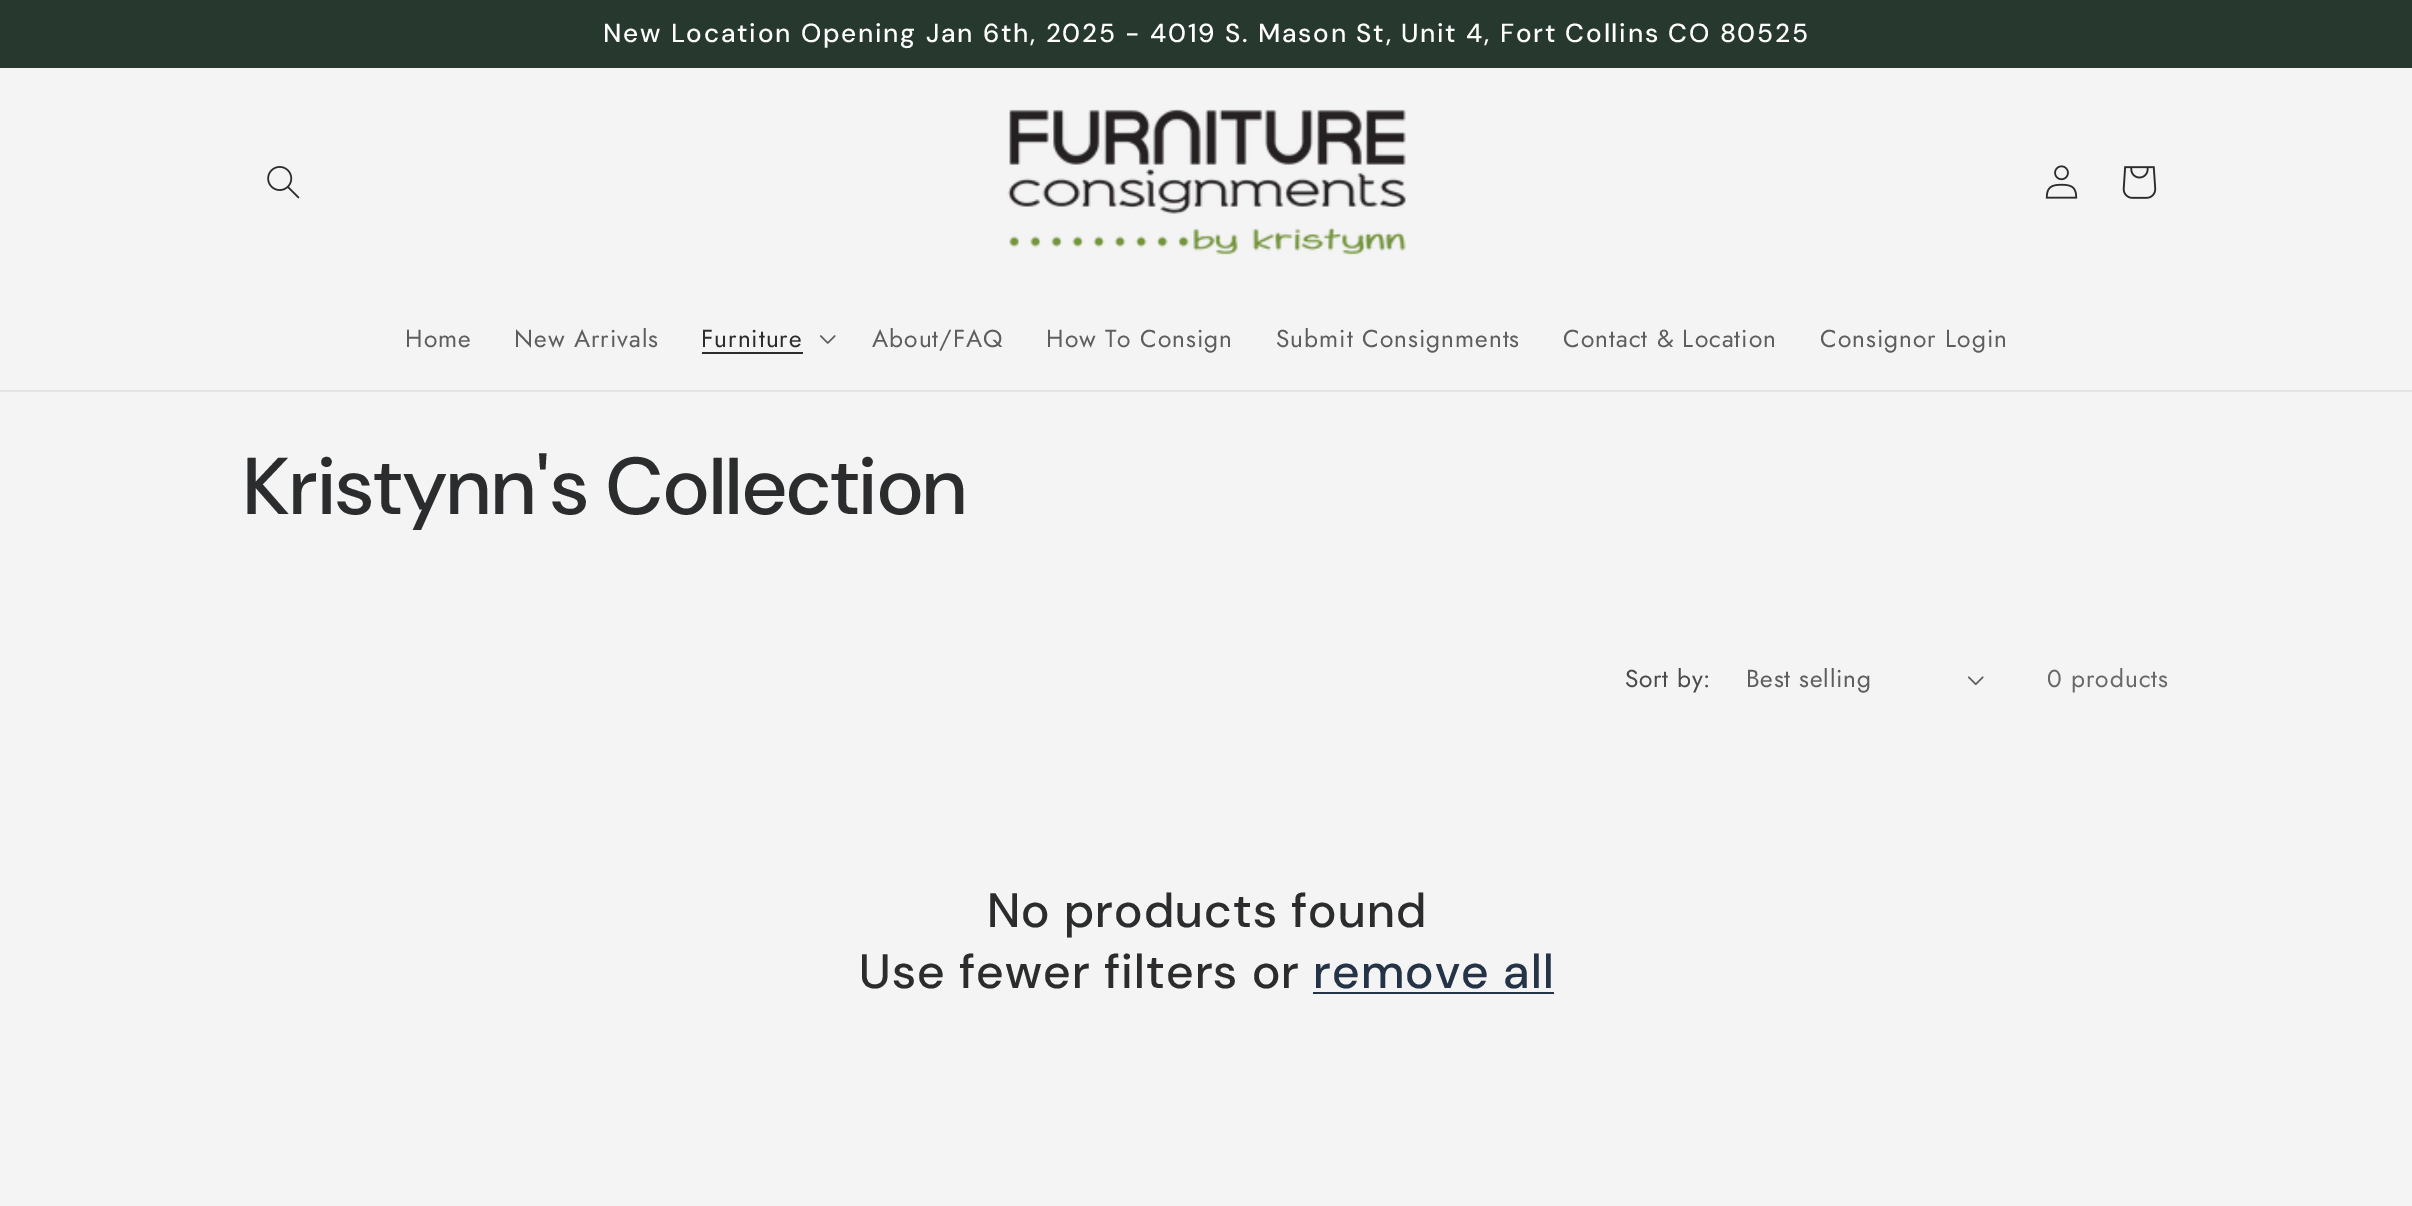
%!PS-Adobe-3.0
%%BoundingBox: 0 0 2412 1206
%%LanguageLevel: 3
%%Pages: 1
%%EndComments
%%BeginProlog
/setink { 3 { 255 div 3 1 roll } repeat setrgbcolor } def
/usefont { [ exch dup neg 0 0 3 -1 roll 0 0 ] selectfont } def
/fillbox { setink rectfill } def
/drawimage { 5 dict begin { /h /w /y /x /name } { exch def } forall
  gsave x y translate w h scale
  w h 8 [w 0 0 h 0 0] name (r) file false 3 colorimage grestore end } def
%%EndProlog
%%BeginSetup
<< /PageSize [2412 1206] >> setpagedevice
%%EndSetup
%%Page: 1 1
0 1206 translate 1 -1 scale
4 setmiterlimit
0 0 2412 1206 244 244 244 fillbox
0 0 2412 68 39 57 46 fillbox
/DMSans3-Medium 26.15 usefont
255 255 255 setink
603 42 moveto 1.75 0 (New Location Opening Jan 6th, 2025 - 4019 S. Mason St, Unit 4, Fort Collins CO 80525) ashow
0 390 2412 2 228 228 228 fillbox
(assets/img1.rgb) 267 166 33 33 drawimage
(assets/img2.rgb) 1007 109 399 146 drawimage
(assets/img3.rgb) 2045 165 33 34 drawimage
(assets/img4.rgb) 2122 166 35 33 drawimage
/Jost-Regular 24.5 usefont
93 94 95 setink
405 347 moveto 1 0 (Home) ashow
514 347 moveto 1 0 (New Arrivals) ashow
43 44 45 setink
701 347 moveto 1 0 (Furniture) ashow
702 352 101 2 43 44 45 fillbox
(assets/img5.rgb) 820 335 16 9 drawimage
93 94 95 setink
872 347 moveto 1 0 (About/FAQ) ashow
1046 347 moveto 1 0 (How To Consign) ashow
1276 347 moveto 1 0 (Submit Consignments) ashow
1563 347 moveto 1 0 (Contact & Location) ashow
1820 347 moveto 1 0 (Consignor Login) ashow
/DMSans-Medium 80.5 usefont
43 44 45 setink
244 514 moveto 1.25 0 (Kristynn's Collection) ashow
/Jost-Regular 24.5 usefont
73 74 75 setink
1625 687 moveto 0.75 0 (Sort by:) ashow
93 94 95 setink
1746 687 moveto 0.75 0 (Best selling) ashow
(assets/img6.rgb) 1967 676 17 10 drawimage
103 104 105 setink
2047 687 moveto 1 0 (0 products) ashow
/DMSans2-Medium 48.25 usefont
43 44 45 setink
987 927 moveto 1.25 0 (No products found) ashow
859 988 moveto 1.25 0 (Use fewer filters or) ashow
37 51 71 setink
1313 988 moveto 1.25 0 (remove all) ashow
1313 992 241 2 37 51 71 fillbox
showpage
%%EOF
